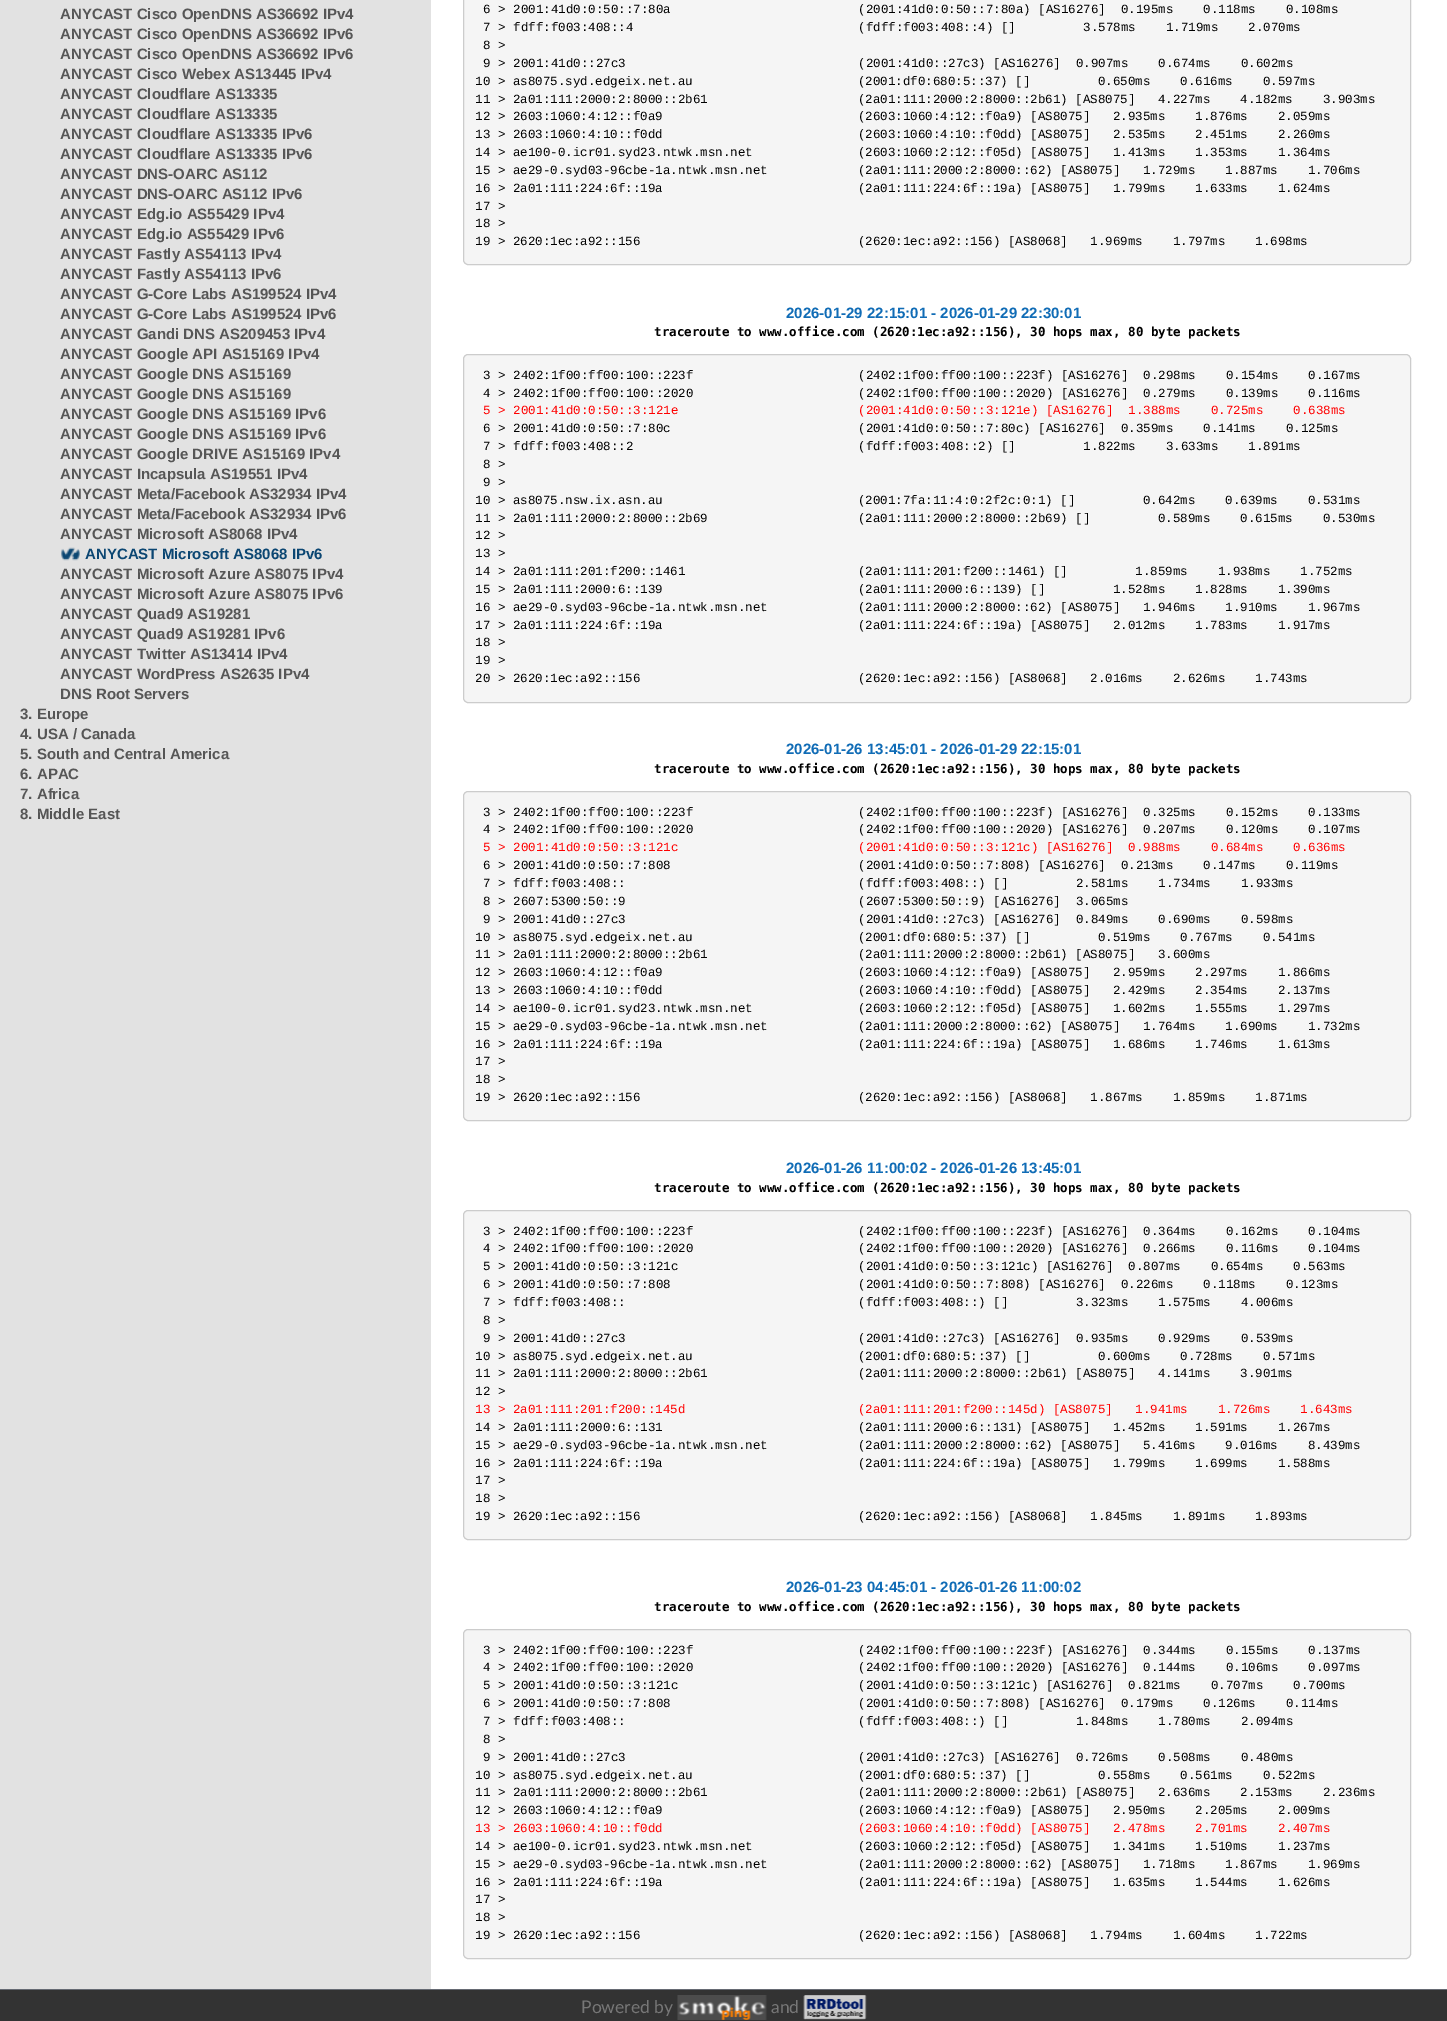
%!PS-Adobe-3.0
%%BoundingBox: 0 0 1447 2021
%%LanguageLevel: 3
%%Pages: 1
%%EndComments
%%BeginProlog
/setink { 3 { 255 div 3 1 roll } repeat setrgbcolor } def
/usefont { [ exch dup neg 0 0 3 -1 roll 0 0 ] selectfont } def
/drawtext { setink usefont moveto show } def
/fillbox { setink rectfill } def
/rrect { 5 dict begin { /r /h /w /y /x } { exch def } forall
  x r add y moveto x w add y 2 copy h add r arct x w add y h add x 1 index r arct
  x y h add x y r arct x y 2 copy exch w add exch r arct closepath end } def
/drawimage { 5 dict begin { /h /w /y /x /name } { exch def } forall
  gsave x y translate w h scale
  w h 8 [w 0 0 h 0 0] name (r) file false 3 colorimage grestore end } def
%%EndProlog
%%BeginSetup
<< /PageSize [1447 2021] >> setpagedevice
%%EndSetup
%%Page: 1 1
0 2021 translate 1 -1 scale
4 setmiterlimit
0 0 1447 2021 255 255 255 fillbox
0 0 431 1989 226 226 226 fillbox
(ANYCAST Cisco OpenDNS AS36692 IPv4) 60 19 /LiberationSans-Bold 15 86 86 86 drawtext
(ANYCAST Cisco OpenDNS AS36692 IPv6) 60 39 /LiberationSans-Bold 15 86 86 86 drawtext
(ANYCAST Cisco OpenDNS AS36692 IPv6) 60 59 /LiberationSans-Bold 15 86 86 86 drawtext
(ANYCAST Cisco Webex AS13445 IPv4) 60 79 /LiberationSans-Bold 15 86 86 86 drawtext
(ANYCAST Cloudflare AS13335) 60 99 /LiberationSans-Bold 15 86 86 86 drawtext
(ANYCAST Cloudflare AS13335) 60 119 /LiberationSans-Bold 15 86 86 86 drawtext
(ANYCAST Cloudflare AS13335 IPv6) 60 139 /LiberationSans-Bold 15 86 86 86 drawtext
(ANYCAST Cloudflare AS13335 IPv6) 60 159 /LiberationSans-Bold 15 86 86 86 drawtext
(ANYCAST DNS-OARC AS112) 60 179 /LiberationSans-Bold 15 86 86 86 drawtext
(ANYCAST DNS-OARC AS112 IPv6) 60 199 /LiberationSans-Bold 15 86 86 86 drawtext
(ANYCAST Edg.io AS55429 IPv4) 60 219 /LiberationSans-Bold 15 86 86 86 drawtext
(ANYCAST Edg.io AS55429 IPv6) 60 239 /LiberationSans-Bold 15 86 86 86 drawtext
(ANYCAST Fastly AS54113 IPv4) 60 259 /LiberationSans-Bold 15 86 86 86 drawtext
(ANYCAST Fastly AS54113 IPv6) 60 279 /LiberationSans-Bold 15 86 86 86 drawtext
(ANYCAST G-Core Labs AS199524 IPv4) 60 299 /LiberationSans-Bold 15 86 86 86 drawtext
(ANYCAST G-Core Labs AS199524 IPv6) 60 319 /LiberationSans-Bold 15 86 86 86 drawtext
(ANYCAST Gandi DNS AS209453 IPv4) 60 339 /LiberationSans-Bold 15 86 86 86 drawtext
(ANYCAST Google API AS15169 IPv4) 60 359 /LiberationSans-Bold 15 86 86 86 drawtext
(ANYCAST Google DNS AS15169) 60 379 /LiberationSans-Bold 15 86 86 86 drawtext
(ANYCAST Google DNS AS15169) 60 399 /LiberationSans-Bold 15 86 86 86 drawtext
(ANYCAST Google DNS AS15169 IPv6) 60 419 /LiberationSans-Bold 15 86 86 86 drawtext
(ANYCAST Google DNS AS15169 IPv6) 60 439 /LiberationSans-Bold 15 86 86 86 drawtext
(ANYCAST Google DRIVE AS15169 IPv4) 60 459 /LiberationSans-Bold 15 86 86 86 drawtext
(ANYCAST Incapsula AS19551 IPv4) 60 479 /LiberationSans-Bold 15 86 86 86 drawtext
(ANYCAST Meta/Facebook AS32934 IPv4) 60 499 /LiberationSans-Bold 15 86 86 86 drawtext
(ANYCAST Meta/Facebook AS32934 IPv6) 60 519 /LiberationSans-Bold 15 86 86 86 drawtext
(ANYCAST Microsoft AS8068 IPv4) 60 539 /LiberationSans-Bold 15 86 86 86 drawtext
(assets/img1.rgb) 61 547 19 14 drawimage
(ANYCAST Microsoft AS8068 IPv6) 85 559 /LiberationSans-Bold 15 11 70 114 drawtext
(ANYCAST Microsoft Azure AS8075 IPv4) 60 579 /LiberationSans-Bold 15 86 86 86 drawtext
(ANYCAST Microsoft Azure AS8075 IPv6) 60 599 /LiberationSans-Bold 15 86 86 86 drawtext
(ANYCAST Quad9 AS19281) 60 619 /LiberationSans-Bold 15 86 86 86 drawtext
(ANYCAST Quad9 AS19281 IPv6) 60 639 /LiberationSans-Bold 15 86 86 86 drawtext
(ANYCAST Twitter AS13414 IPv4) 60 659 /LiberationSans-Bold 15 86 86 86 drawtext
(ANYCAST WordPress AS2635 IPv4) 60 679 /LiberationSans-Bold 15 86 86 86 drawtext
(DNS Root Servers) 60 699 /LiberationSans-Bold 15 86 86 86 drawtext
(3. Europe) 20 719 /LiberationSans-Bold 15 86 86 86 drawtext
(4. USA / Canada) 20 739 /LiberationSans-Bold 15 86 86 86 drawtext
(5. South and Central America) 20 759 /LiberationSans-Bold 15 86 86 86 drawtext
(6. APAC) 20 779 /LiberationSans-Bold 15 86 86 86 drawtext
(7. Africa) 20 799 /LiberationSans-Bold 15 86 86 86 drawtext
(8. Middle East) 20 819 /LiberationSans-Bold 15 86 86 86 drawtext
245 245 245 setink
463.5 -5.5 947 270 4.5 rrect gsave fill grestore
204 204 204 setink
stroke
(6 > 2001:41d0:0:50::7:80a                         \(2001:41d0:0:50::7:80a\) [AS16276]  0.195ms    0.118ms    0.108ms) 483 13 /LiberationMono-Regular 12.5 0 0 0 drawtext
(7 > fdff:f003:408::4                              \(fdff:f003:408::4\) []         3.578ms    1.719ms    2.070ms) 483 31 /LiberationMono-Regular 12.5 0 0 0 drawtext
(8 >) 483 49 /LiberationMono-Regular 12.5 0 0 0 drawtext
(9 > 2001:41d0::27c3                               \(2001:41d0::27c3\) [AS16276]  0.907ms    0.674ms    0.602ms) 483 67 /LiberationMono-Regular 12.5 0 0 0 drawtext
(10 > as8075.syd.edgeix.net.au                      \(2001:df0:680:5::37\) []         0.650ms    0.616ms    0.597ms) 475 85 /LiberationMono-Regular 12.5 0 0 0 drawtext
(11 > 2a01:111:2000:2:8000::2b61                    \(2a01:111:2000:2:8000::2b61\) [AS8075]   4.227ms    4.182ms    3.903ms) 475 103 /LiberationMono-Regular 12.5 0 0 0 drawtext
(12 > 2603:1060:4:12::f0a9                          \(2603:1060:4:12::f0a9\) [AS8075]   2.935ms    1.876ms    2.059ms) 475 120 /LiberationMono-Regular 12.5 0 0 0 drawtext
(13 > 2603:1060:4:10::f0dd                          \(2603:1060:4:10::f0dd\) [AS8075]   2.535ms    2.451ms    2.260ms) 475 138 /LiberationMono-Regular 12.5 0 0 0 drawtext
(14 > ae100-0.icr01.syd23.ntwk.msn.net              \(2603:1060:2:12::f05d\) [AS8075]   1.413ms    1.353ms    1.364ms) 475 156 /LiberationMono-Regular 12.5 0 0 0 drawtext
(15 > ae29-0.syd03-96cbe-1a.ntwk.msn.net            \(2a01:111:2000:2:8000::62\) [AS8075]   1.729ms    1.887ms    1.706ms) 475 174 /LiberationMono-Regular 12.5 0 0 0 drawtext
(16 > 2a01:111:224:6f::19a                          \(2a01:111:224:6f::19a\) [AS8075]   1.799ms    1.633ms    1.624ms) 475 192 /LiberationMono-Regular 12.5 0 0 0 drawtext
(17 >) 475 210 /LiberationMono-Regular 12.5 0 0 0 drawtext
(18 >) 475 227 /LiberationMono-Regular 12.5 0 0 0 drawtext
(19 > 2620:1ec:a92::156                             \(2620:1ec:a92::156\) [AS8068]   1.969ms    1.797ms    1.698ms) 475 245 /LiberationMono-Regular 12.5 0 0 0 drawtext
(2026-01-29 22:15:01 - 2026-01-29 22:30:01) 786 318 /LiberationSans-Bold 15 16 108 182 drawtext
(traceroute to www.office.com \(2620:1ec:a92::156\), 30 hops max, 80 byte packets) 654 336 /DejaVuSansMono-Bold 12.5 0 0 0 drawtext
245 245 245 setink
463.5 354.5 947 348 4.5 rrect gsave fill grestore
204 204 204 setink
stroke
(3 > 2402:1f00:ff00:100::223f                      \(2402:1f00:ff00:100::223f\) [AS16276]  0.298ms    0.154ms    0.167ms) 483 379 /LiberationMono-Regular 12.5 0 0 0 drawtext
(4 > 2402:1f00:ff00:100::2020                      \(2402:1f00:ff00:100::2020\) [AS16276]  0.279ms    0.139ms    0.116ms) 483 397 /LiberationMono-Regular 12.5 0 0 0 drawtext
(5 > 2001:41d0:0:50::3:121e                        \(2001:41d0:0:50::3:121e\) [AS16276]  1.388ms    0.725ms    0.638ms) 483 414 /LiberationMono-Regular 12.5 255 0 0 drawtext
(6 > 2001:41d0:0:50::7:80c                         \(2001:41d0:0:50::7:80c\) [AS16276]  0.359ms    0.141ms    0.125ms) 483 432 /LiberationMono-Regular 12.5 0 0 0 drawtext
(7 > fdff:f003:408::2                              \(fdff:f003:408::2\) []         1.822ms    3.633ms    1.891ms) 483 450 /LiberationMono-Regular 12.5 0 0 0 drawtext
(8 >) 483 468 /LiberationMono-Regular 12.5 0 0 0 drawtext
(9 >) 483 486 /LiberationMono-Regular 12.5 0 0 0 drawtext
(10 > as8075.nsw.ix.asn.au                          \(2001:7fa:11:4:0:2f2c:0:1\) []         0.642ms    0.639ms    0.531ms) 475 504 /LiberationMono-Regular 12.5 0 0 0 drawtext
(11 > 2a01:111:2000:2:8000::2b69                    \(2a01:111:2000:2:8000::2b69\) []         0.589ms    0.615ms    0.530ms) 475 522 /LiberationMono-Regular 12.5 0 0 0 drawtext
(12 >) 475 539 /LiberationMono-Regular 12.5 0 0 0 drawtext
(13 >) 475 557 /LiberationMono-Regular 12.5 0 0 0 drawtext
(14 > 2a01:111:201:f200::1461                       \(2a01:111:201:f200::1461\) []         1.859ms    1.938ms    1.752ms) 475 575 /LiberationMono-Regular 12.5 0 0 0 drawtext
(15 > 2a01:111:2000:6::139                          \(2a01:111:2000:6::139\) []         1.528ms    1.828ms    1.390ms) 475 593 /LiberationMono-Regular 12.5 0 0 0 drawtext
(16 > ae29-0.syd03-96cbe-1a.ntwk.msn.net            \(2a01:111:2000:2:8000::62\) [AS8075]   1.946ms    1.910ms    1.967ms) 475 611 /LiberationMono-Regular 12.5 0 0 0 drawtext
(17 > 2a01:111:224:6f::19a                          \(2a01:111:224:6f::19a\) [AS8075]   2.012ms    1.783ms    1.917ms) 475 629 /LiberationMono-Regular 12.5 0 0 0 drawtext
(18 >) 475 646 /LiberationMono-Regular 12.5 0 0 0 drawtext
(19 >) 475 664 /LiberationMono-Regular 12.5 0 0 0 drawtext
(20 > 2620:1ec:a92::156                             \(2620:1ec:a92::156\) [AS8068]   2.016ms    2.626ms    1.743ms) 475 682 /LiberationMono-Regular 12.5 0 0 0 drawtext
(2026-01-26 13:45:01 - 2026-01-29 22:15:01) 786 754 /LiberationSans-Bold 15 16 108 182 drawtext
(traceroute to www.office.com \(2620:1ec:a92::156\), 30 hops max, 80 byte packets) 654 773 /DejaVuSansMono-Bold 12.5 0 0 0 drawtext
245 245 245 setink
463.5 791.5 947 329 4.5 rrect gsave fill grestore
204 204 204 setink
stroke
(3 > 2402:1f00:ff00:100::223f                      \(2402:1f00:ff00:100::223f\) [AS16276]  0.325ms    0.152ms    0.133ms) 483 816 /LiberationMono-Regular 12.5 0 0 0 drawtext
(4 > 2402:1f00:ff00:100::2020                      \(2402:1f00:ff00:100::2020\) [AS16276]  0.207ms    0.120ms    0.107ms) 483 833 /LiberationMono-Regular 12.5 0 0 0 drawtext
(5 > 2001:41d0:0:50::3:121c                        \(2001:41d0:0:50::3:121c\) [AS16276]  0.988ms    0.684ms    0.636ms) 483 851 /LiberationMono-Regular 12.5 255 0 0 drawtext
(6 > 2001:41d0:0:50::7:808                         \(2001:41d0:0:50::7:808\) [AS16276]  0.213ms    0.147ms    0.119ms) 483 869 /LiberationMono-Regular 12.5 0 0 0 drawtext
(7 > fdff:f003:408::                               \(fdff:f003:408::\) []         2.581ms    1.734ms    1.933ms) 483 887 /LiberationMono-Regular 12.5 0 0 0 drawtext
(8 > 2607:5300:50::9                               \(2607:5300:50::9\) [AS16276]  3.065ms) 483 905 /LiberationMono-Regular 12.5 0 0 0 drawtext
(9 > 2001:41d0::27c3                               \(2001:41d0::27c3\) [AS16276]  0.849ms    0.690ms    0.598ms) 483 923 /LiberationMono-Regular 12.5 0 0 0 drawtext
(10 > as8075.syd.edgeix.net.au                      \(2001:df0:680:5::37\) []         0.519ms    0.767ms    0.541ms) 475 941 /LiberationMono-Regular 12.5 0 0 0 drawtext
(11 > 2a01:111:2000:2:8000::2b61                    \(2a01:111:2000:2:8000::2b61\) [AS8075]   3.600ms) 475 958 /LiberationMono-Regular 12.5 0 0 0 drawtext
(12 > 2603:1060:4:12::f0a9                          \(2603:1060:4:12::f0a9\) [AS8075]   2.959ms    2.297ms    1.866ms) 475 976 /LiberationMono-Regular 12.5 0 0 0 drawtext
(13 > 2603:1060:4:10::f0dd                          \(2603:1060:4:10::f0dd\) [AS8075]   2.429ms    2.354ms    2.137ms) 475 994 /LiberationMono-Regular 12.5 0 0 0 drawtext
(14 > ae100-0.icr01.syd23.ntwk.msn.net              \(2603:1060:2:12::f05d\) [AS8075]   1.602ms    1.555ms    1.297ms) 475 1012 /LiberationMono-Regular 12.5 0 0 0 drawtext
(15 > ae29-0.syd03-96cbe-1a.ntwk.msn.net            \(2a01:111:2000:2:8000::62\) [AS8075]   1.764ms    1.690ms    1.732ms) 475 1030 /LiberationMono-Regular 12.5 0 0 0 drawtext
(16 > 2a01:111:224:6f::19a                          \(2a01:111:224:6f::19a\) [AS8075]   1.686ms    1.746ms    1.613ms) 475 1048 /LiberationMono-Regular 12.5 0 0 0 drawtext
(17 >) 475 1065 /LiberationMono-Regular 12.5 0 0 0 drawtext
(18 >) 475 1083 /LiberationMono-Regular 12.5 0 0 0 drawtext
(19 > 2620:1ec:a92::156                             \(2620:1ec:a92::156\) [AS8068]   1.867ms    1.859ms    1.871ms) 475 1101 /LiberationMono-Regular 12.5 0 0 0 drawtext
(2026-01-26 11:00:02 - 2026-01-26 13:45:01) 786 1173 /LiberationSans-Bold 15 16 108 182 drawtext
(traceroute to www.office.com \(2620:1ec:a92::156\), 30 hops max, 80 byte packets) 654 1192 /DejaVuSansMono-Bold 12.5 0 0 0 drawtext
245 245 245 setink
463.5 1210.5 947 329 4.5 rrect gsave fill grestore
204 204 204 setink
stroke
(3 > 2402:1f00:ff00:100::223f                      \(2402:1f00:ff00:100::223f\) [AS16276]  0.364ms    0.162ms    0.104ms) 483 1235 /LiberationMono-Regular 12.5 0 0 0 drawtext
(4 > 2402:1f00:ff00:100::2020                      \(2402:1f00:ff00:100::2020\) [AS16276]  0.266ms    0.116ms    0.104ms) 483 1252 /LiberationMono-Regular 12.5 0 0 0 drawtext
(5 > 2001:41d0:0:50::3:121c                        \(2001:41d0:0:50::3:121c\) [AS16276]  0.807ms    0.654ms    0.563ms) 483 1270 /LiberationMono-Regular 12.5 0 0 0 drawtext
(6 > 2001:41d0:0:50::7:808                         \(2001:41d0:0:50::7:808\) [AS16276]  0.226ms    0.118ms    0.123ms) 483 1288 /LiberationMono-Regular 12.5 0 0 0 drawtext
(7 > fdff:f003:408::                               \(fdff:f003:408::\) []         3.323ms    1.575ms    4.006ms) 483 1306 /LiberationMono-Regular 12.5 0 0 0 drawtext
(8 >) 483 1324 /LiberationMono-Regular 12.5 0 0 0 drawtext
(9 > 2001:41d0::27c3                               \(2001:41d0::27c3\) [AS16276]  0.935ms    0.929ms    0.539ms) 483 1342 /LiberationMono-Regular 12.5 0 0 0 drawtext
(10 > as8075.syd.edgeix.net.au                      \(2001:df0:680:5::37\) []         0.600ms    0.728ms    0.571ms) 475 1360 /LiberationMono-Regular 12.5 0 0 0 drawtext
(11 > 2a01:111:2000:2:8000::2b61                    \(2a01:111:2000:2:8000::2b61\) [AS8075]   4.141ms    3.901ms) 475 1377 /LiberationMono-Regular 12.5 0 0 0 drawtext
(12 >) 475 1395 /LiberationMono-Regular 12.5 0 0 0 drawtext
(13 > 2a01:111:201:f200::145d                       \(2a01:111:201:f200::145d\) [AS8075]   1.941ms    1.726ms    1.643ms) 475 1413 /LiberationMono-Regular 12.5 255 0 0 drawtext
(14 > 2a01:111:2000:6::131                          \(2a01:111:2000:6::131\) [AS8075]   1.452ms    1.591ms    1.267ms) 475 1431 /LiberationMono-Regular 12.5 0 0 0 drawtext
(15 > ae29-0.syd03-96cbe-1a.ntwk.msn.net            \(2a01:111:2000:2:8000::62\) [AS8075]   5.416ms    9.016ms    8.439ms) 475 1449 /LiberationMono-Regular 12.5 0 0 0 drawtext
(16 > 2a01:111:224:6f::19a                          \(2a01:111:224:6f::19a\) [AS8075]   1.799ms    1.699ms    1.588ms) 475 1467 /LiberationMono-Regular 12.5 0 0 0 drawtext
(17 >) 475 1484 /LiberationMono-Regular 12.5 0 0 0 drawtext
(18 >) 475 1502 /LiberationMono-Regular 12.5 0 0 0 drawtext
(19 > 2620:1ec:a92::156                             \(2620:1ec:a92::156\) [AS8068]   1.845ms    1.891ms    1.893ms) 475 1520 /LiberationMono-Regular 12.5 0 0 0 drawtext
(2026-01-23 04:45:01 - 2026-01-26 11:00:02) 786 1592 /LiberationSans-Bold 15 16 108 182 drawtext
(traceroute to www.office.com \(2620:1ec:a92::156\), 30 hops max, 80 byte packets) 654 1611 /DejaVuSansMono-Bold 12.5 0 0 0 drawtext
245 245 245 setink
463.5 1629.5 947 329 4.5 rrect gsave fill grestore
204 204 204 setink
stroke
(3 > 2402:1f00:ff00:100::223f                      \(2402:1f00:ff00:100::223f\) [AS16276]  0.344ms    0.155ms    0.137ms) 483 1654 /LiberationMono-Regular 12.5 0 0 0 drawtext
(4 > 2402:1f00:ff00:100::2020                      \(2402:1f00:ff00:100::2020\) [AS16276]  0.144ms    0.106ms    0.097ms) 483 1671 /LiberationMono-Regular 12.5 0 0 0 drawtext
(5 > 2001:41d0:0:50::3:121c                        \(2001:41d0:0:50::3:121c\) [AS16276]  0.821ms    0.707ms    0.700ms) 483 1689 /LiberationMono-Regular 12.5 0 0 0 drawtext
(6 > 2001:41d0:0:50::7:808                         \(2001:41d0:0:50::7:808\) [AS16276]  0.179ms    0.126ms    0.114ms) 483 1707 /LiberationMono-Regular 12.5 0 0 0 drawtext
(7 > fdff:f003:408::                               \(fdff:f003:408::\) []         1.848ms    1.780ms    2.094ms) 483 1725 /LiberationMono-Regular 12.5 0 0 0 drawtext
(8 >) 483 1743 /LiberationMono-Regular 12.5 0 0 0 drawtext
(9 > 2001:41d0::27c3                               \(2001:41d0::27c3\) [AS16276]  0.726ms    0.508ms    0.480ms) 483 1761 /LiberationMono-Regular 12.5 0 0 0 drawtext
(10 > as8075.syd.edgeix.net.au                      \(2001:df0:680:5::37\) []         0.558ms    0.561ms    0.522ms) 475 1779 /LiberationMono-Regular 12.5 0 0 0 drawtext
(11 > 2a01:111:2000:2:8000::2b61                    \(2a01:111:2000:2:8000::2b61\) [AS8075]   2.636ms    2.153ms    2.236ms) 475 1796 /LiberationMono-Regular 12.5 0 0 0 drawtext
(12 > 2603:1060:4:12::f0a9                          \(2603:1060:4:12::f0a9\) [AS8075]   2.950ms    2.205ms    2.009ms) 475 1814 /LiberationMono-Regular 12.5 0 0 0 drawtext
(13 > 2603:1060:4:10::f0dd                          \(2603:1060:4:10::f0dd\) [AS8075]   2.478ms    2.701ms    2.407ms) 475 1832 /LiberationMono-Regular 12.5 255 0 0 drawtext
(14 > ae100-0.icr01.syd23.ntwk.msn.net              \(2603:1060:2:12::f05d\) [AS8075]   1.341ms    1.510ms    1.237ms) 475 1850 /LiberationMono-Regular 12.5 0 0 0 drawtext
(15 > ae29-0.syd03-96cbe-1a.ntwk.msn.net            \(2a01:111:2000:2:8000::62\) [AS8075]   1.718ms    1.867ms    1.969ms) 475 1868 /LiberationMono-Regular 12.5 0 0 0 drawtext
(16 > 2a01:111:224:6f::19a                          \(2a01:111:224:6f::19a\) [AS8075]   1.635ms    1.544ms    1.626ms) 475 1886 /LiberationMono-Regular 12.5 0 0 0 drawtext
(17 >) 475 1903 /LiberationMono-Regular 12.5 0 0 0 drawtext
(18 >) 475 1921 /LiberationMono-Regular 12.5 0 0 0 drawtext
(19 > 2620:1ec:a92::156                             \(2620:1ec:a92::156\) [AS8068]   1.794ms    1.604ms    1.722ms) 475 1939 /LiberationMono-Regular 12.5 0 0 0 drawtext
0 1990 1447 31 51 51 51 fillbox
0 1989 1447 1 102 106 115 fillbox
(Powered by) 581 2013 /Lato-Regular 17.5 119 119 119 drawtext
(assets/img2.rgb) 677 1995 90 25 drawimage
(and) 771 2013 /Lato-Regular 17.5 119 119 119 drawtext
(assets/img3.rgb) 803 1995 64 25 drawimage
showpage
%%EOF
